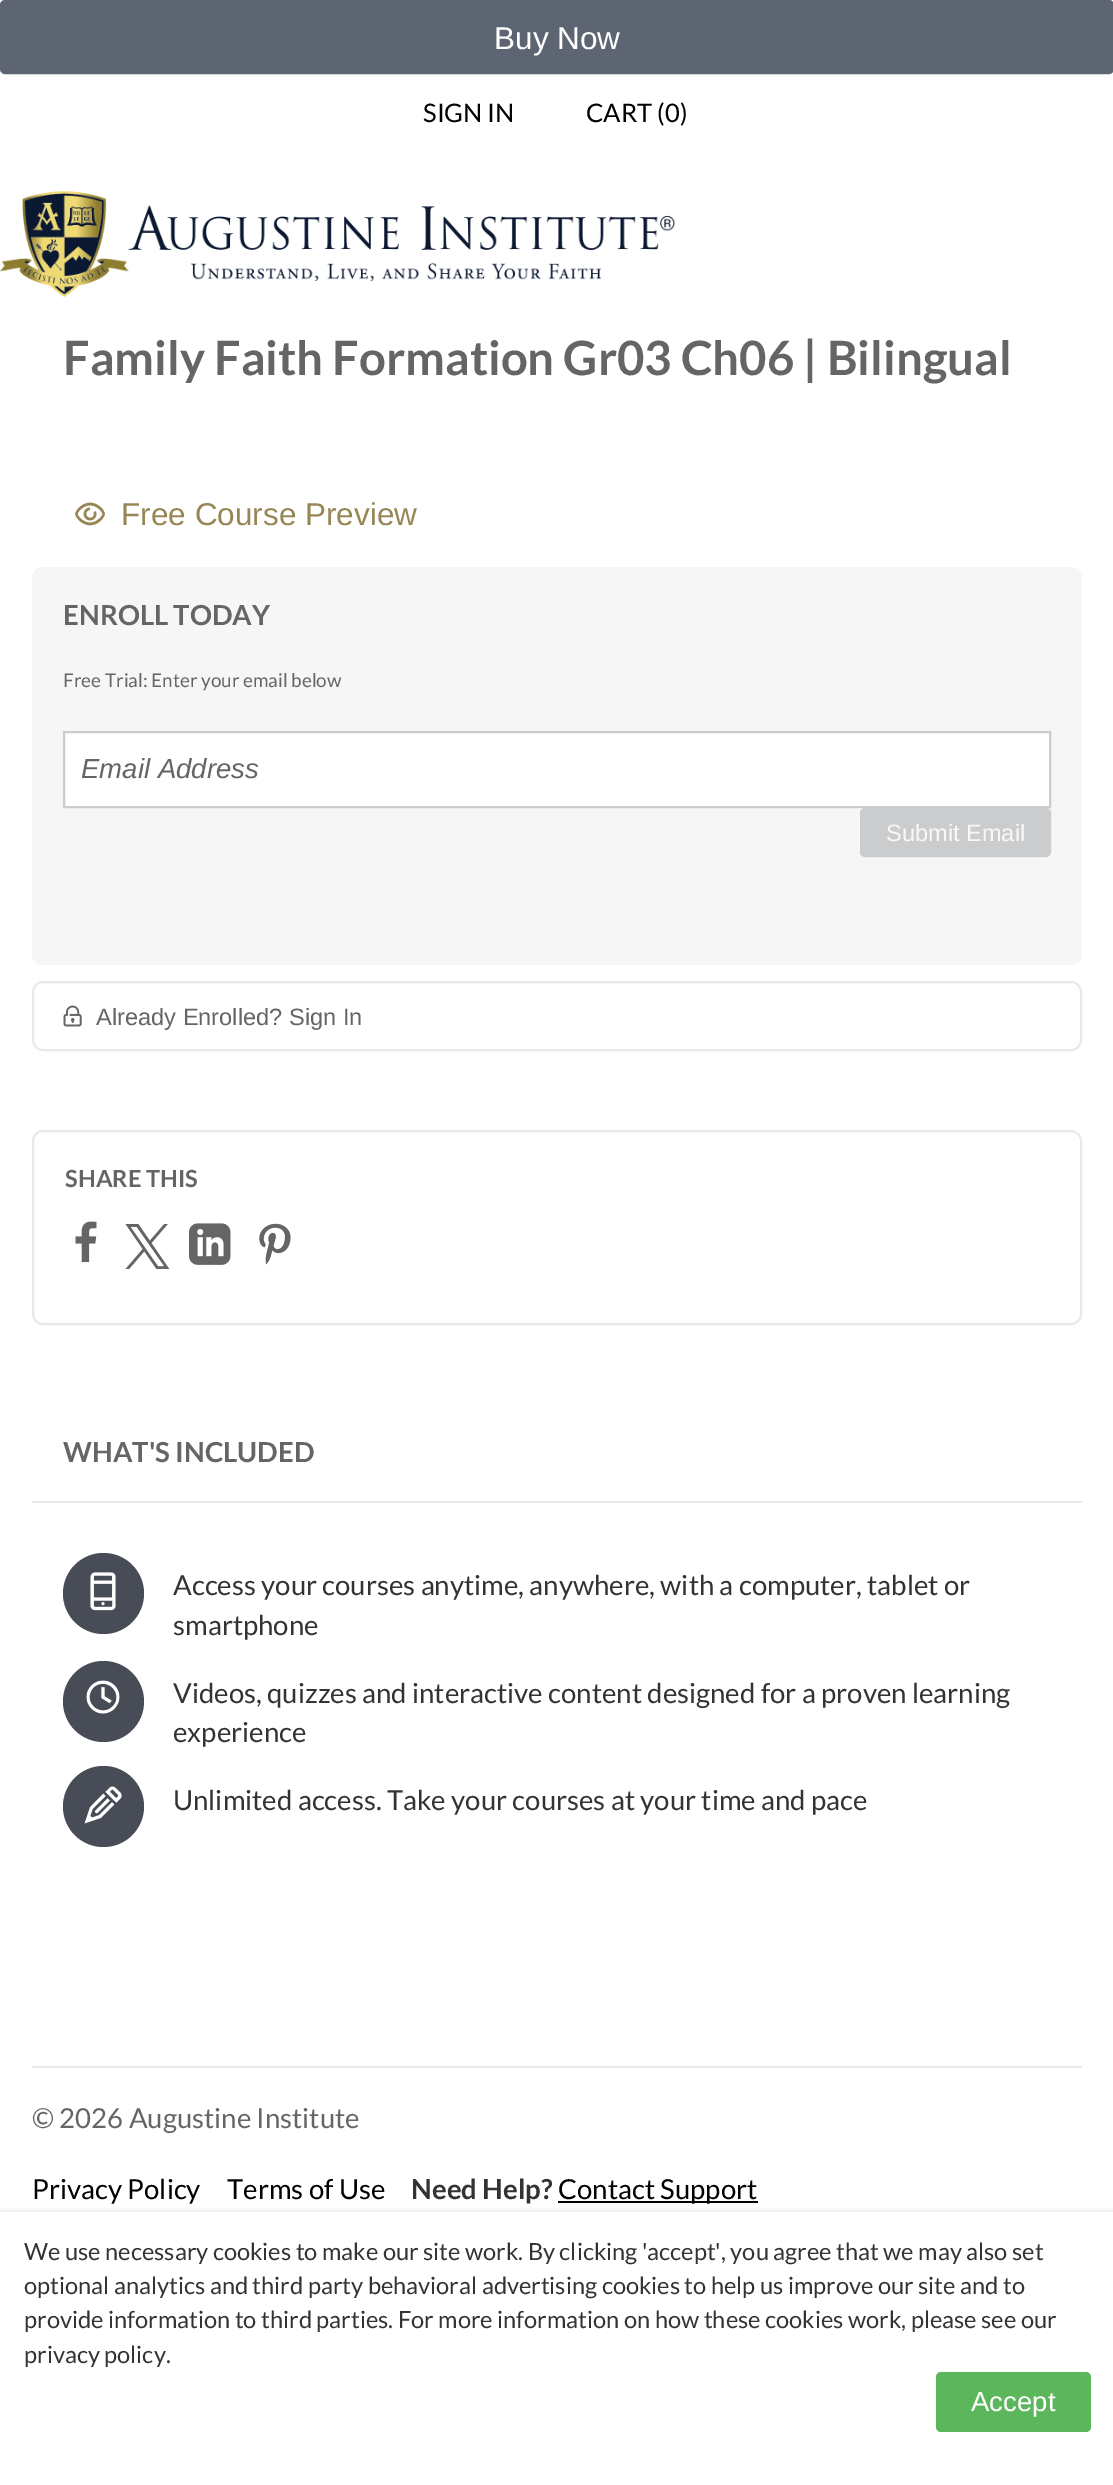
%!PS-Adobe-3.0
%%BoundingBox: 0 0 1113 2485
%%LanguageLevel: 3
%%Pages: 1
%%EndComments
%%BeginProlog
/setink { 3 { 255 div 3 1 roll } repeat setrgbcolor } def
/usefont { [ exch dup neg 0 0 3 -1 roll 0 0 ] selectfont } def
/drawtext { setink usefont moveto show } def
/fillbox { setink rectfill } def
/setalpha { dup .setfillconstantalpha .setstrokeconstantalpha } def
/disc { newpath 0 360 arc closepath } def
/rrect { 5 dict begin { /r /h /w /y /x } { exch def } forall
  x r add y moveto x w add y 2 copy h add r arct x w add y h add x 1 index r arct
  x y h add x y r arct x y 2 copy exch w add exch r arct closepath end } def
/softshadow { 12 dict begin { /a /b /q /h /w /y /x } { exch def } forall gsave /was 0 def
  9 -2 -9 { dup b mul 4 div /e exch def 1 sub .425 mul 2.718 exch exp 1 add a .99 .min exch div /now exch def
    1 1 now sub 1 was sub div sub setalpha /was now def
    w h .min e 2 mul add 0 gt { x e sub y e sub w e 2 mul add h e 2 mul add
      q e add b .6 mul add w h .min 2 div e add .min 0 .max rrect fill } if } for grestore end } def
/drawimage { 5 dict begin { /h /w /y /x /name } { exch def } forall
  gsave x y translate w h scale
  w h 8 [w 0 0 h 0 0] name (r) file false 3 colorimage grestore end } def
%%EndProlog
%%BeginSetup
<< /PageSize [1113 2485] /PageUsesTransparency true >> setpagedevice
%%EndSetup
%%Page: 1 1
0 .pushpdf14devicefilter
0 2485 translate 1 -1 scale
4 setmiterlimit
0 0 1113 2485 255 255 255 fillbox
94 101 114 setink
1 1 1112 72 4 rrect gsave fill grestore
2 setlinewidth
stroke
(Buy Now) 494 49 /LiberationSans-Regular 31.5 255 255 255 drawtext
(assets/img1.rgb) 75 502 30 24 drawimage
(Free Course Preview) 121 525 /LiberationSans-Regular 31.5 151 134 85 drawtext
246 246 246 setink
32 567 1050 398 11 rrect fill
(ENROLL TODAY) 63 625 /Lato-Bold 27.55 101 101 101 drawtext
(Free Trial: Enter your email below) 63 687 /Lato-Regular 18.9 101 101 101 drawtext
255 255 255 setink
64 732 moveto 1050 732 lineto 1050 807 lineto 64 807 lineto closepath gsave fill grestore
204 204 204 setink
stroke
(Email Address) 81 778 /LiberationSans-Italic 27.55 101 101 101 drawtext
202 204 206 setink
861 809 189 47 4 rrect gsave fill grestore
stroke
(Submit Email) 886 841 /LiberationSans-Regular 23.6 248 248 248 drawtext
233 233 233 setink
33 982 1048 68 10 rrect stroke
(assets/img2.rgb) 63 1005 19 22 drawimage
(Already Enrolled? Sign In) 96 1025 /LiberationSans-Regular 23.6 101 101 101 drawtext
233 233 233 setink
33 1131 1048 193 10 rrect stroke
(SHARE THIS) 65 1187 /Lato-Bold 23.6 101 101 101 drawtext
(assets/img3.rgb) 75 1221 22 42 drawimage
(assets/img4.rgb) 125 1224 45 45 drawimage
(assets/img5.rgb) 189 1223 42 42 drawimage
(assets/img6.rgb) 259 1223 32 42 drawimage
(WHAT'S INCLUDED) 63 1462 /Lato-Bold 27.55 101 101 101 drawtext
32 1501 1050 2 233 233 233 fillbox
71 76 86 setink
103.5 1593.5 40.5 disc fill
(assets/img7.rgb) 90 1572 26 39 drawimage
(Access your courses anytime, anywhere, with a computer, tablet or) 173 1595 /Lato-Regular 27.55 51 51 51 drawtext
(smartphone) 173 1635 /Lato-Regular 27.55 51 51 51 drawtext
71 76 86 setink
103.5 1701.5 40.5 disc fill
(assets/img8.rgb) 86 1680 34 34 drawimage
(Videos, quizzes and interactive content designed for a proven learning) 173 1703 /Lato-Regular 27.55 51 51 51 drawtext
(experience) 173 1742 /Lato-Regular 27.55 51 51 51 drawtext
71 76 86 setink
103.5 1806.5 40.5 disc fill
(assets/img9.rgb) 84 1786 38 38 drawimage
(Unlimited access. Take your courses at your time and pace) 173 1810 /Lato-Regular 27.55 51 51 51 drawtext
(Family Faith Formation Gr03 Ch06 | Bilingual) 63 375 /Lato-Bold 47.25 101 101 101 drawtext
(SIGN IN) 423 122 /Lato-Regular 25.5 0 0 0 drawtext
(CART \(0\)) 586 122 /Lato-Regular 25.5 0 0 0 drawtext
(assets/img10.rgb) 0 191 675 106 drawimage
32 2066 1050 2 233 233 233 fillbox
(© 2026 Augustine Institute) 32 2128 /Lato-Regular 27.55 101 101 101 drawtext
(Privacy Policy) 32 2199 /Lato-Regular 27.55 0 0 0 drawtext
(Terms of Use) 227 2199 /Lato-Regular 27.55 0 0 0 drawtext
(Need Help?) 411 2199 /Lato-Bold 27.55 51 51 51 drawtext
558 2201 200 2 0 0 0 fillbox
(Contact Support) 558 2199 /Lato-Regular 27.55 0 0 0 drawtext
233 233 233 setink
0 2210 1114 274 0 2 1 softshadow
0 2212 1113 273 255 255 255 fillbox
(We use necessary cookies to make our site work. By clicking 'accept', you agree that we may also set) 24 2260 /Lato-Regular 23.6 51 51 51 drawtext
(optional analytics and third party behavioral advertising cookies to help us improve our site and to) 24 2294 /Lato-Regular 23.6 51 51 51 drawtext
(provide information to third parties. For more information on how these cookies work, please see our) 24 2328 /Lato-Regular 23.6 51 51 51 drawtext
(privacy policy.) 24 2363 /Lato-Regular 23.6 51 51 51 drawtext
91 182 92 setink
936 2372 155 60 5 rrect fill
(Accept) 971 2411 /LiberationSans-Regular 27.55 255 255 255 drawtext
.poppdf14devicefilter showpage
%%EOF
